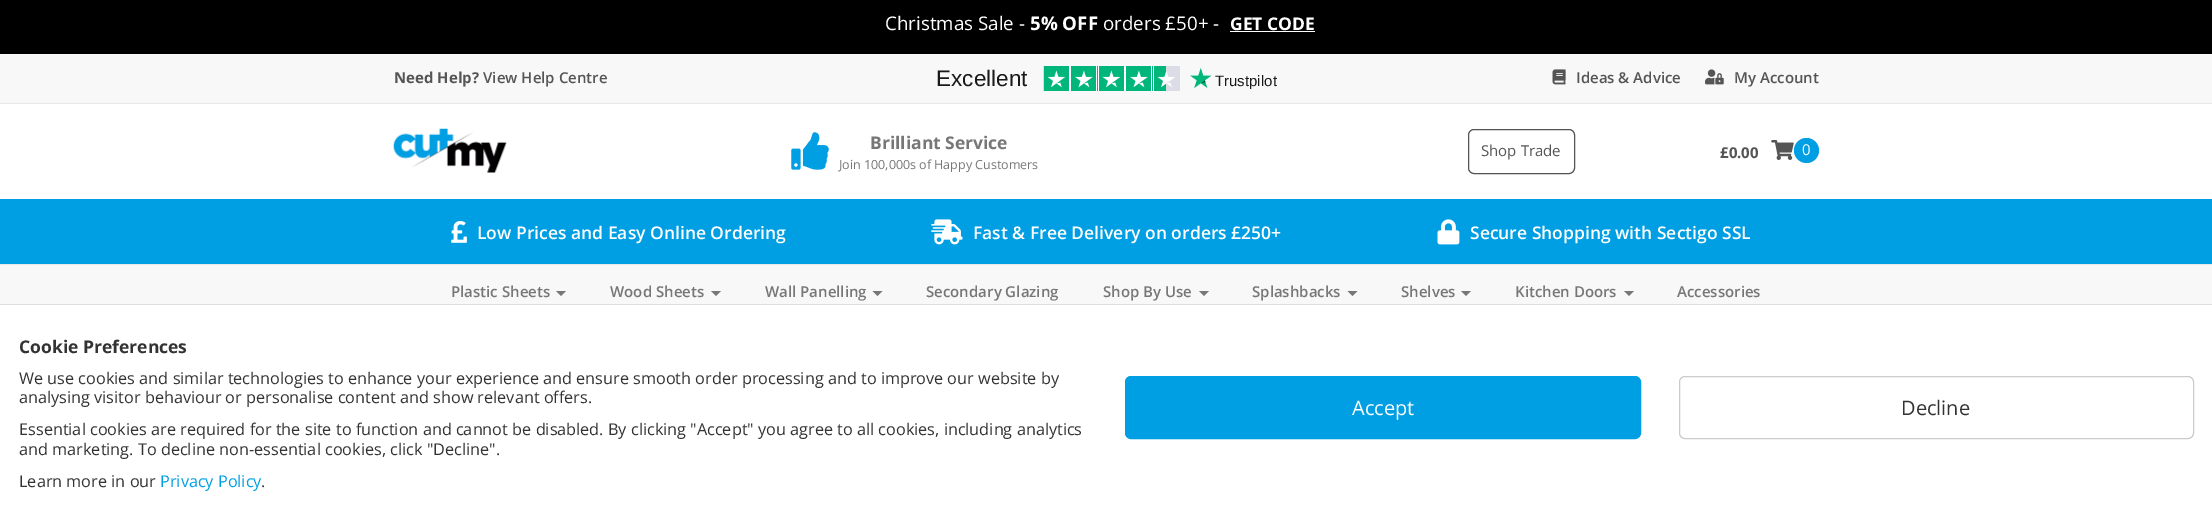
%!PS-Adobe-3.0
%%BoundingBox: 0 0 2212 510
%%LanguageLevel: 3
%%Pages: 1
%%EndComments
%%BeginProlog
/setink { 3 { 255 div 3 1 roll } repeat setrgbcolor } def
/usefont { [ exch dup neg 0 0 3 -1 roll 0 0 ] selectfont } def
/drawtext { setink usefont moveto show } def
/fillbox { setink rectfill } def
/disc { newpath 0 360 arc closepath } def
/rrect { 5 dict begin { /r /h /w /y /x } { exch def } forall
  x r add y moveto x w add y 2 copy h add r arct x w add y h add x 1 index r arct
  x y h add x y r arct x y 2 copy exch w add exch r arct closepath end } def
/drawimage { 5 dict begin { /h /w /y /x /name } { exch def } forall
  gsave x y translate w h scale
  w h 8 [w 0 0 h 0 0] name (r) file false 3 colorimage grestore end } def
%%EndProlog
%%BeginSetup
<< /PageSize [2212 510] >> setpagedevice
%%EndSetup
%%Page: 1 1
0 510 translate 1 -1 scale
4 setmiterlimit
0 0 2212 510 255 255 255 fillbox
0 0 2212 54 0 0 0 fillbox
(Christmas Sale -) 885 30 /OpenSans-Regular 18.75 255 255 255 drawtext
(5% OFF) 1030 30 /OpenSans-Bold 18.75 255 255 255 drawtext
(orders £50+ -) 1103 30 /OpenSans-Regular 18.75 255 255 255 drawtext
(GET CODE) 1230 30 /OpenSans-Bold 17.5 255 255 255 drawtext
1230 31 85 1 255 255 255 fillbox
0 54 2212 49 248 248 248 fillbox
0 103 2212 1 231 231 231 fillbox
(Need Help?) 394 83 /OpenSans-Bold 15 85 85 85 drawtext
(View Help Centre) 483 83 /OpenSans-SemiBold 15 85 85 85 drawtext
(Excellent) 936 86 /LiberationSans-Regular 22.5 25 25 25 drawtext
1166 66 14 25 220 220 230 fillbox
1044 66 122 25 0 182 122 fillbox
1069 66 2 25 255 255 255 fillbox
1043 66 1 25 220 220 230 fillbox
(assets/img1.rgb) 1047 70 18 18 drawimage
1096 66 1 25 255 255 255 fillbox
(assets/img2.rgb) 1075 70 18 18 drawimage
1124 66 2 25 255 255 255 fillbox
1098 66 1 25 255 255 255 fillbox
(assets/img1.rgb) 1102 70 18 18 drawimage
1151 66 1 25 255 255 255 fillbox
(assets/img2.rgb) 1130 70 18 18 drawimage
1153 66 1 25 255 255 255 fillbox
(assets/img3.rgb) 1157 71 18 17 drawimage
(assets/img4.rgb) 1190 68 22 20 drawimage
(Trustpilot) 1215 86 /LiberationSans-Regular 15 25 25 25 drawtext
(assets/img5.rgb) 1552 69 14 16 drawimage
(Ideas & Advice) 1576 83 /OpenSans-SemiBold 15 85 85 85 drawtext
(assets/img6.rgb) 1705 69 19 16 drawimage
(My Account) 1734 83 /OpenSans-SemiBold 15 85 85 85 drawtext
(assets/img7.rgb) 393 128 114 45 drawimage
(assets/img8.rgb) 791 132 38 38 drawimage
(Brilliant Service) 870 149 /OpenSans-Bold 17.5 119 119 119 drawtext
(Join 100,000s of Happy Customers) 839 169 /OpenSans-Regular 12.5 119 119 119 drawtext
85 85 85 setink
1468.5 129.5 106 44 5.5 rrect stroke
(Shop Trade) 1481 156 /OpenSans-Regular 15 85 85 85 drawtext
(£0.00) 1720 158 /OpenSans-Bold 15 85 85 85 drawtext
(assets/img9.rgb) 1771 140 23 20 drawimage
0 159 227 setink
1806.5 150.5 12.5 disc fill
(0) 1802 155 /OpenSans-Regular 15 255 255 255 drawtext
0 199 2212 65 0 159 227 fillbox
(assets/img10.rgb) 451 220 16 23 drawimage
(Low Prices and Easy Online Ordering) 477 239 /OpenSans-SemiBold 17.5 255 255 255 drawtext
(assets/img11.rgb) 931 219 32 26 drawimage
(Fast & Free Delivery on orders £250+) 973 239 /OpenSans-SemiBold 17.5 255 255 255 drawtext
(assets/img12.rgb) 1437 219 23 26 drawimage
(Secure Shopping with Sectigo SSL) 1470 239 /OpenSans-SemiBold 17.5 255 255 255 drawtext
0 265 2212 39 248 248 248 fillbox
0 264 2212 1 231 231 231 fillbox
(Plastic Sheets) 451 297 /OpenSans-SemiBold 15 119 119 119 drawtext
556 291 moveto 566 291 lineto 561 296 lineto closepath fill
(Wood Sheets) 610 297 /OpenSans-SemiBold 15 119 119 119 drawtext
711 291 moveto 721 291 lineto 716 296 lineto closepath fill
(Wall Panelling) 765 297 /OpenSans-SemiBold 15 119 119 119 drawtext
872.5 291 moveto 882.5 291 lineto 877.5 296 lineto closepath fill
(Secondary Glazing) 926 297 /OpenSans-SemiBold 15 119 119 119 drawtext
(Shop By Use) 1103 297 /OpenSans-SemiBold 15 119 119 119 drawtext
1199 291 moveto 1209 291 lineto 1204 296 lineto closepath fill
(Splashbacks) 1252 297 /OpenSans-SemiBold 15 119 119 119 drawtext
1347.5 291 moveto 1357.5 291 lineto 1352.5 296 lineto closepath fill
(Shelves) 1401 297 /OpenSans-SemiBold 15 119 119 119 drawtext
1461 291 moveto 1471 291 lineto 1466 296 lineto closepath fill
(Kitchen Doors) 1515 297 /OpenSans-SemiBold 15 119 119 119 drawtext
1624 291 moveto 1634 291 lineto 1629 296 lineto closepath fill
(Accessories) 1677 297 /OpenSans-SemiBold 15 119 119 119 drawtext
0 304 2212 1 221 221 221 fillbox
(Cookie Preferences) 19 353 /OpenSans-Bold 17.5 51 51 51 drawtext
(We use cookies and similar technologies to enhance your experience and ensure smooth order processing and to improve our website by) 19 384 /OpenSans-Regular 16.25 51 51 51 drawtext
(analysing visitor behaviour or personalise content and show relevant offers.) 19 403 /OpenSans-Regular 16.25 51 51 51 drawtext
(Essential cookies are required for the site to function and cannot be disabled. By clicking "Accept" you agree to all cookies, including analytics) 19 435 /OpenSans-Regular 16.25 51 51 51 drawtext
(and marketing. To decline non-essential cookies, click "Decline".) 19 455 /OpenSans-Regular 16.25 51 51 51 drawtext
(Learn more in our) 19 487 /OpenSans-Regular 16.25 51 51 51 drawtext
(Privacy Policy) 160 487 /OpenSans-Regular 16.25 0 159 227 drawtext
(.) 261 487 /OpenSans-Regular 16.25 51 51 51 drawtext
0 159 227 setink
1125.5 376.5 515 62 5.5 rrect gsave fill grestore
stroke
(Accept) 1352 415 /OpenSans-Regular 20 255 255 255 drawtext
204 204 204 setink
1679.5 376.5 514 62 5.5 rrect stroke
(Decline) 1901 415 /OpenSans-Regular 20 51 51 51 drawtext
showpage
%%EOF
